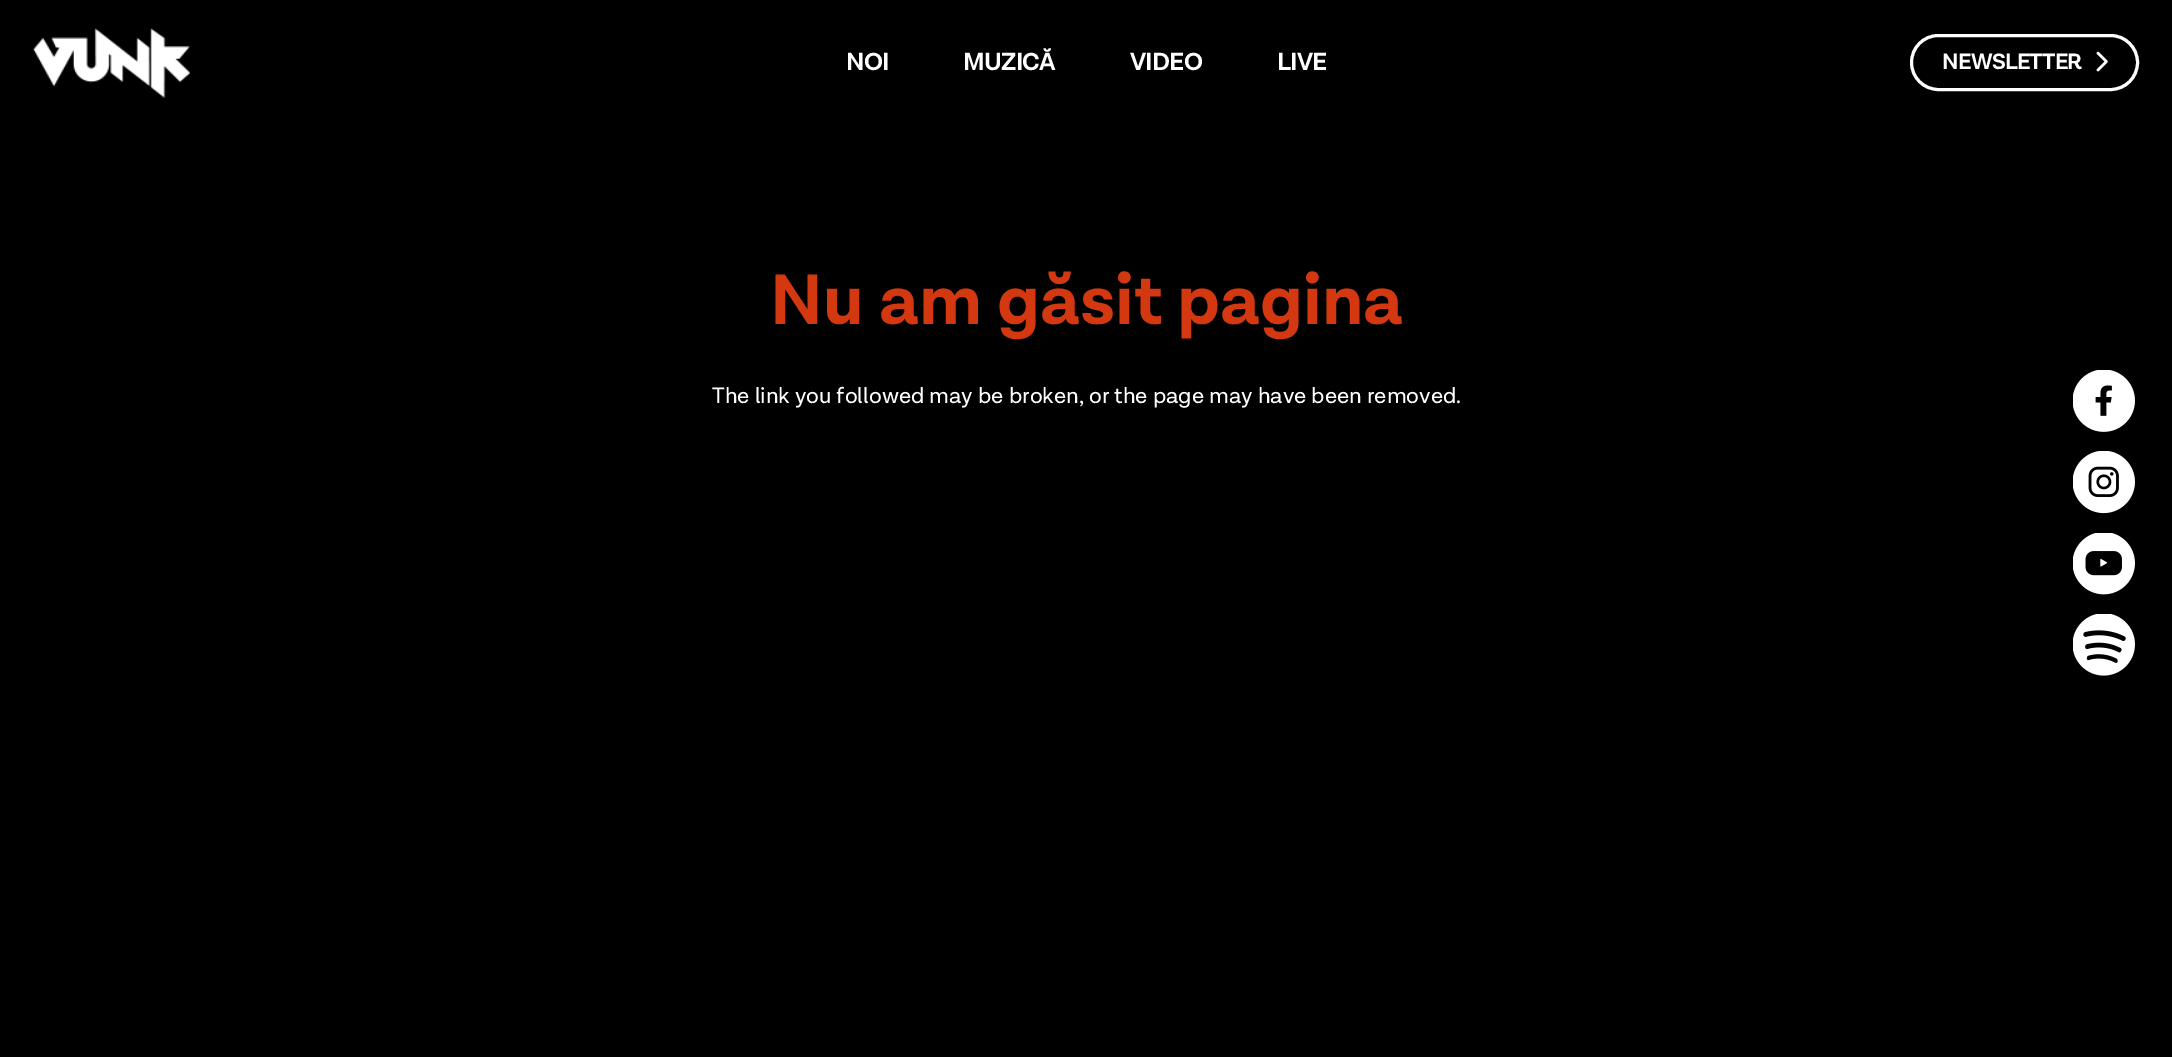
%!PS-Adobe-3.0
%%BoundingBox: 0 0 2172 1057
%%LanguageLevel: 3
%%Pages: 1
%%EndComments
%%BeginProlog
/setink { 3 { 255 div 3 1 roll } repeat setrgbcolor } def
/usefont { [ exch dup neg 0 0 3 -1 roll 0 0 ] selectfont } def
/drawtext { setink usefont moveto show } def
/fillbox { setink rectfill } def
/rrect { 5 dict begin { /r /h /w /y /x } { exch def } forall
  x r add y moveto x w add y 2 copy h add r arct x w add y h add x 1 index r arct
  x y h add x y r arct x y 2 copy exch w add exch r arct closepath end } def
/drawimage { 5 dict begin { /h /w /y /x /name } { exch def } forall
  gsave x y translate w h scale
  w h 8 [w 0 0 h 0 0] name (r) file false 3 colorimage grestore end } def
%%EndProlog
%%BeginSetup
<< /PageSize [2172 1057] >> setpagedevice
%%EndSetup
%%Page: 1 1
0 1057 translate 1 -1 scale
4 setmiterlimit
0 0 2172 1057 0 0 0 fillbox
(assets/img1.rgb) 33 28 157 70 drawimage
/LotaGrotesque-Bold 25 usefont
255 255 255 setink
846 70 moveto -0.75 0 (NOI) ashow
963 70 moveto -0.75 0 (MUZICĂ) ashow
1130 70 moveto -0.75 0 (VIDEO) ashow
1277 70 moveto -0.75 0 (LIVE) ashow
(assets/img2.rgb) 2096 51 12 21 drawimage
3 setlinewidth
1911.5 35.5 226 54 27 rrect stroke
/LotaGrotesque-Bold 22.5 usefont
1942 69 moveto -0.75 0 (NEWSLETTER) ashow
(Nu am găsit pagina) 770 324 /LotaGrotesque-Bold 72 212 56 17 drawtext
(The link you followed may be broken, or the page may have been removed.) 712 403 /LotaGrotesque-Regular 22.5 255 255 255 drawtext
(assets/img3.rgb) 2073 370 62 62 drawimage
(assets/img4.rgb) 2073 451 62 63 drawimage
(assets/img5.rgb) 2073 533 62 62 drawimage
(assets/img6.rgb) 2073 614 62 62 drawimage
showpage
%%EOF
